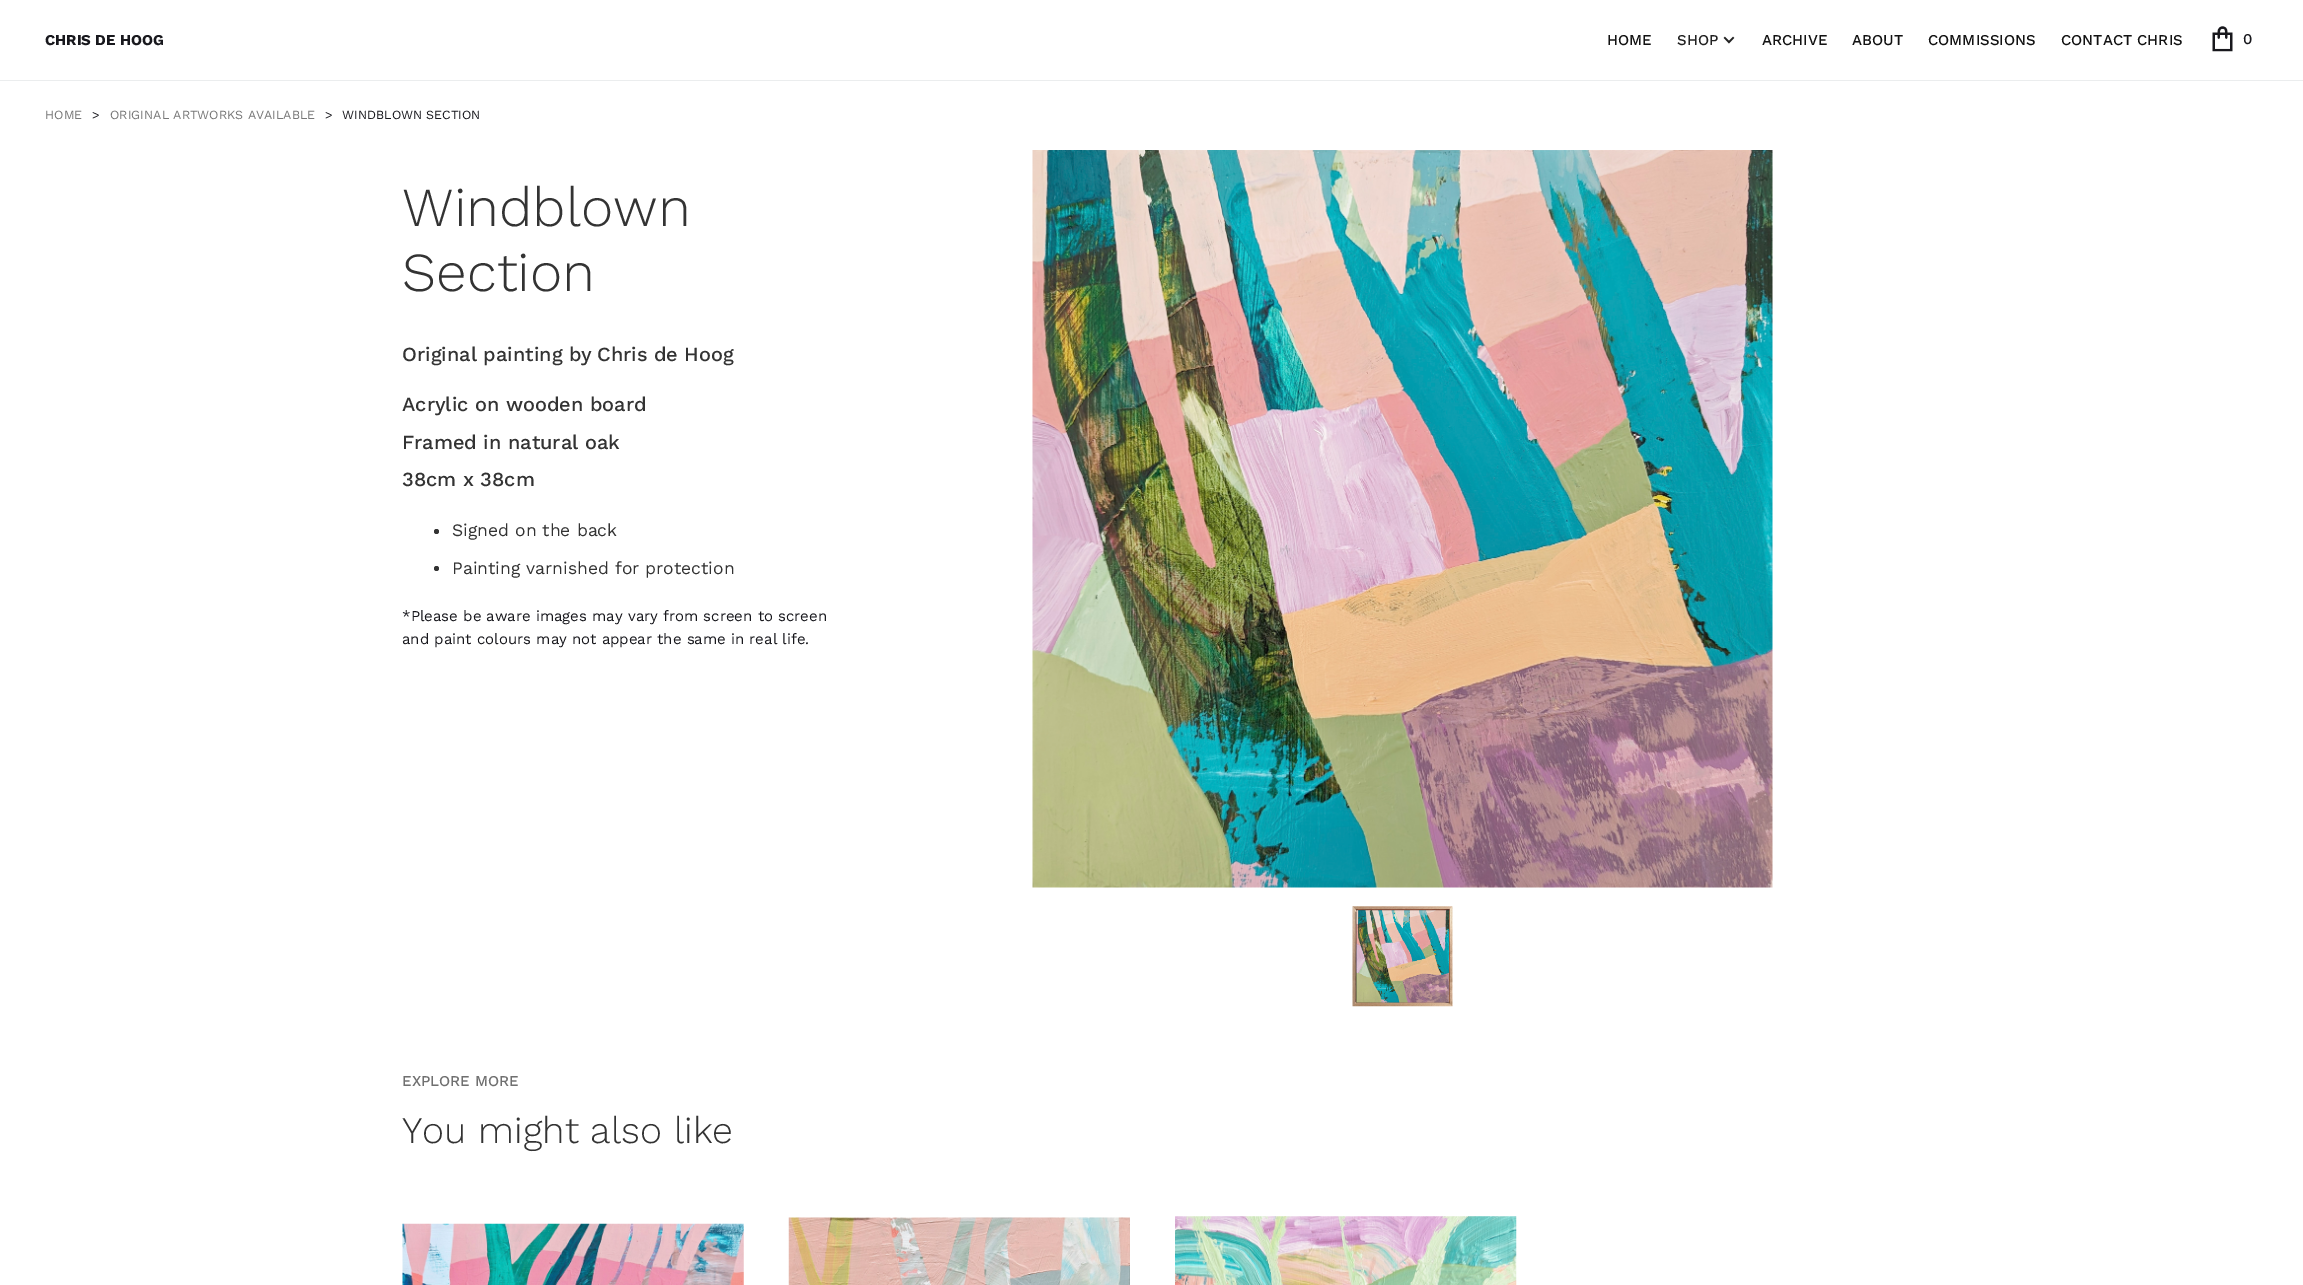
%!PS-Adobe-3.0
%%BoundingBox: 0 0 2303 1285
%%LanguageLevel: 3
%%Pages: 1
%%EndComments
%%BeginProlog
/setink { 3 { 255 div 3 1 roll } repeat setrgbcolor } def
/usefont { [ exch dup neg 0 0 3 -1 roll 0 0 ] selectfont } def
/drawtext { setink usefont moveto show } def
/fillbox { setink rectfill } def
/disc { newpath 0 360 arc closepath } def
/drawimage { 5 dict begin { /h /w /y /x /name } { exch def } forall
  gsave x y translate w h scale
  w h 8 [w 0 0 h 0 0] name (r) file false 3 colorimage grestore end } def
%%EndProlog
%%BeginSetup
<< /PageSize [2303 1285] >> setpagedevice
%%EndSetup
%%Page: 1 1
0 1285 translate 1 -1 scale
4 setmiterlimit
0 0 2303 1285 255 255 255 fillbox
0 80 2303 1 235 237 238 fillbox
(CHRIS DE HOOG) 45 45 /WorkSans-Bold 15 24 24 29 drawtext
(HOME) 1607 45 /WorkSans-Medium 15 18 18 18 drawtext
(SHOP) 1677 45 /WorkSans-Medium 15 34 34 34 drawtext
(assets/img1.rgb) 1723 36 12 8 drawimage
(ARCHIVE) 1762 45 /WorkSans-Medium 15 18 18 18 drawtext
(ABOUT) 1852 45 /WorkSans-Medium 15 18 18 18 drawtext
(COMMISSIONS) 1928 45 /WorkSans-Medium 15 18 18 18 drawtext
(CONTACT CHRIS) 2061 45 /WorkSans-Medium 15 18 18 18 drawtext
(assets/img2.rgb) 2212 26 21 26 drawimage
(0) 2243 44 /WorkSans-Medium 15 24 24 29 drawtext
(HOME) 45 119 /WorkSans-Regular 12.5 119 119 119 drawtext
(>) 92 119 /WorkSans-Regular 12.5 24 24 29 drawtext
(ORIGINAL ARTWORKS AVAILABLE) 110 119 /WorkSans-Regular 12.5 119 119 119 drawtext
(>) 325 119 /WorkSans-Regular 12.5 24 24 29 drawtext
(WINDBLOWN SECTION) 342 119 /WorkSans-Regular 12.5 24 24 29 drawtext
(Windblown) 402 226 /WorkSans-Light 55 51 51 51 drawtext
(Section) 402 291 /WorkSans-Light 55 51 51 51 drawtext
(Original painting by) 402 361 /WorkSans-Medium 20 51 51 51 drawtext
(Chris de Hoog) 597 361 /WorkSans-Medium 20 51 51 51 drawtext
(Acrylic on wooden board) 402 411 /WorkSans-Medium 20 51 51 51 drawtext
(Framed in natural oak) 402 449 /WorkSans-Medium 20 51 51 51 drawtext
(38cm x 38cm) 402 486 /WorkSans-Medium 20 51 51 51 drawtext
436.5 531.5 2.5 disc fill
(Signed on the back) 452 536 /WorkSans-Regular 17.5 51 51 51 drawtext
436.5 568.5 2.5 disc fill
(Painting varnished for protection) 452 574 /WorkSans-Regular 17.5 51 51 51 drawtext
(*Please be aware images may vary from screen to screen) 402 621 /WorkSans-Regular 15 24 24 29 drawtext
(and paint colours may not appear the same in real life.) 402 644 /WorkSans-Regular 15 24 24 29 drawtext
(assets/img3.rgb) 1032 150 741 738 drawimage
(assets/img4.rgb) 1352 906 101 101 drawimage
(EXPLORE MORE) 402 1086 /WorkSans-Medium 15 112 112 112 drawtext
(You might also like) 402 1143 /WorkSans-Light 37.5 51 51 51 drawtext
(assets/img5.rgb) 402 1223 342 62 drawimage
(assets/img6.rgb) 788 1217 342 68 drawimage
(assets/img7.rgb) 1175 1216 342 69 drawimage
showpage
%%EOF
